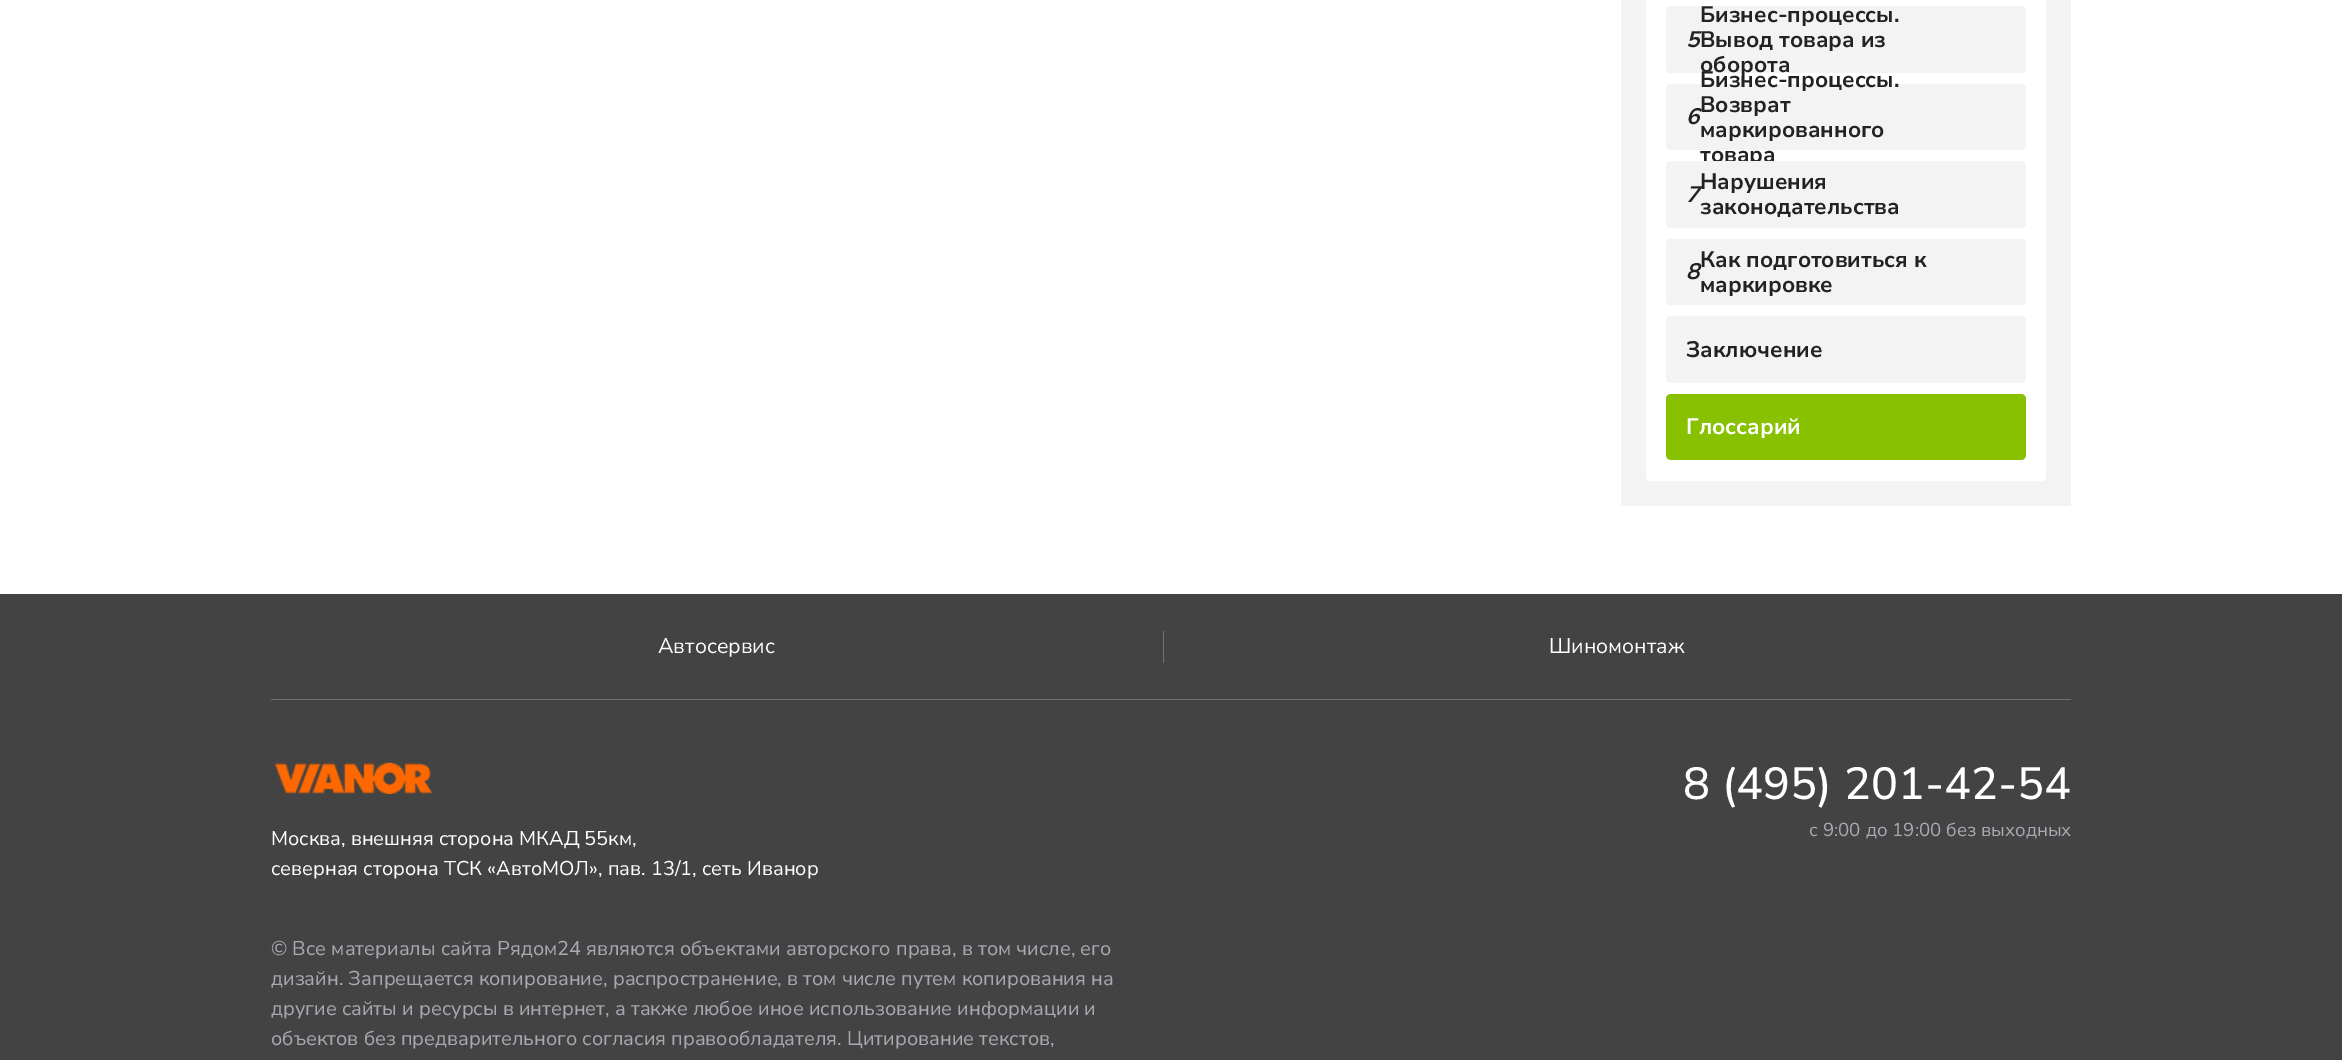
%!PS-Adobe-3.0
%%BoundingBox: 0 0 2342 1060
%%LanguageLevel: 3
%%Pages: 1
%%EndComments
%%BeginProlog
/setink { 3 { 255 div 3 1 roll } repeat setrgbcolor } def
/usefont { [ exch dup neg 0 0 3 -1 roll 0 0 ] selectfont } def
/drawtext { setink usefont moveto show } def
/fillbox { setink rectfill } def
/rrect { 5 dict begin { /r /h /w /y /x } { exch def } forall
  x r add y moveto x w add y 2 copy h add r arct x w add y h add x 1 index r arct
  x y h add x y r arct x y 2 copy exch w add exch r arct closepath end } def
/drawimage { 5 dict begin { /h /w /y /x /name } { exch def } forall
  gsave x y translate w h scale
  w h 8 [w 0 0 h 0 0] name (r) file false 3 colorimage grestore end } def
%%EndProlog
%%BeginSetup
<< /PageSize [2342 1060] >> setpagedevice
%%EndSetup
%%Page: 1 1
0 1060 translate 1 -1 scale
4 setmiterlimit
0 0 2342 1060 255 255 255 fillbox
1621 0 450 506 243 243 243 fillbox
255 255 255 setink
1646 -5 moveto 2046 -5 lineto 2046 476 lineto 2046 479 2044 481 2041 481 curveto 1651 481 lineto 1648 481 1646 479 1646 476 curveto closepath fill
243 243 243 setink
1666 6 360 67 5 rrect fill
(Бизнес-процессы.) 1700 22 /NunitoSans-Bold 22.5 34 34 34 drawtext
(5) 1686 47 /NunitoSans-BoldItalic 22.5 34 34 34 drawtext
(Вывод товара из) 1700 47 /NunitoSans-Bold 22.5 34 34 34 drawtext
(оборота) 1700 72 /NunitoSans-Bold 22.5 34 34 34 drawtext
243 243 243 setink
1666 84 360 66 5 rrect fill
(Бизнес-процессы.) 1700 87 /NunitoSans-Bold 22.5 34 34 34 drawtext
(6) 1686 124 /NunitoSans-BoldItalic 22.5 34 34 34 drawtext
(Возврат) 1700 112 /NunitoSans-Bold 22.5 34 34 34 drawtext
(маркированного) 1700 137 /NunitoSans-Bold 22.5 34 34 34 drawtext
(товара) 1700 162 /NunitoSans-Bold 22.5 34 34 34 drawtext
243 243 243 setink
1666 161 360 67 5 rrect fill
(7) 1686 202 /NunitoSans-BoldItalic 22.5 34 34 34 drawtext
(Нарушения) 1700 189 /NunitoSans-Bold 22.5 34 34 34 drawtext
(законодательства) 1700 214 /NunitoSans-Bold 22.5 34 34 34 drawtext
243 243 243 setink
1666 239 360 66 5 rrect fill
(8) 1686 279 /NunitoSans-BoldItalic 22.5 34 34 34 drawtext
(Как подготовиться к) 1700 267 /NunitoSans-Bold 22.5 34 34 34 drawtext
(маркировке) 1700 292 /NunitoSans-Bold 22.5 34 34 34 drawtext
243 243 243 setink
1666 316 360 67 5 rrect fill
(Заключение) 1686 357 /NunitoSans-Bold 22.5 34 34 34 drawtext
136 193 0 setink
1666 394 360 66 5 rrect fill
(Глоссарий) 1686 434 /NunitoSans-Bold 22.5 255 255 255 drawtext
0 594 2342 466 67 67 67 fillbox
271 699 1800 1 114 114 114 fillbox
(Автосервис) 658 653 /NunitoSans-Regular 21.25 255 255 255 drawtext
1163 631 1 32 114 114 114 fillbox
(Шиномонтаж) 1549 653 /NunitoSans-Regular 21.25 255 255 255 drawtext
(8 \(495\) 201-42-54) 1683 799 /NunitoSans-Medium 45 255 255 255 drawtext
(с 9:00 до 19:00 без выходных) 1809 836 /NunitoSans-Regular 18.75 168 169 178 drawtext
(assets/img1.rgb) 274 762 159 32 drawimage
(Москва, внешняя сторона МКАД 55км,) 271 845 /NunitoSans-Regular 20 255 255 255 drawtext
(северная сторона ТСК «АвтоМОЛ», пав. 13/1, сеть Иванор) 271 875 /NunitoSans-Regular 20 255 255 255 drawtext
(© Все материалы сайта Рядом24 являются объектами авторского права, в том числе, его) 271 955 /NunitoSans-Regular 20 168 169 178 drawtext
(дизайн. Запрещается копирование, распространение, в том числе путем копирования на) 271 985 /NunitoSans-Regular 20 168 169 178 drawtext
(другие сайты и ресурсы в интернет, а также любое иное использование информации и) 271 1015 /NunitoSans-Regular 20 168 169 178 drawtext
(объектов без предварительного согласия правообладателя. Цитирование текстов,) 271 1045 /NunitoSans-Regular 20 168 169 178 drawtext
showpage
%%EOF
